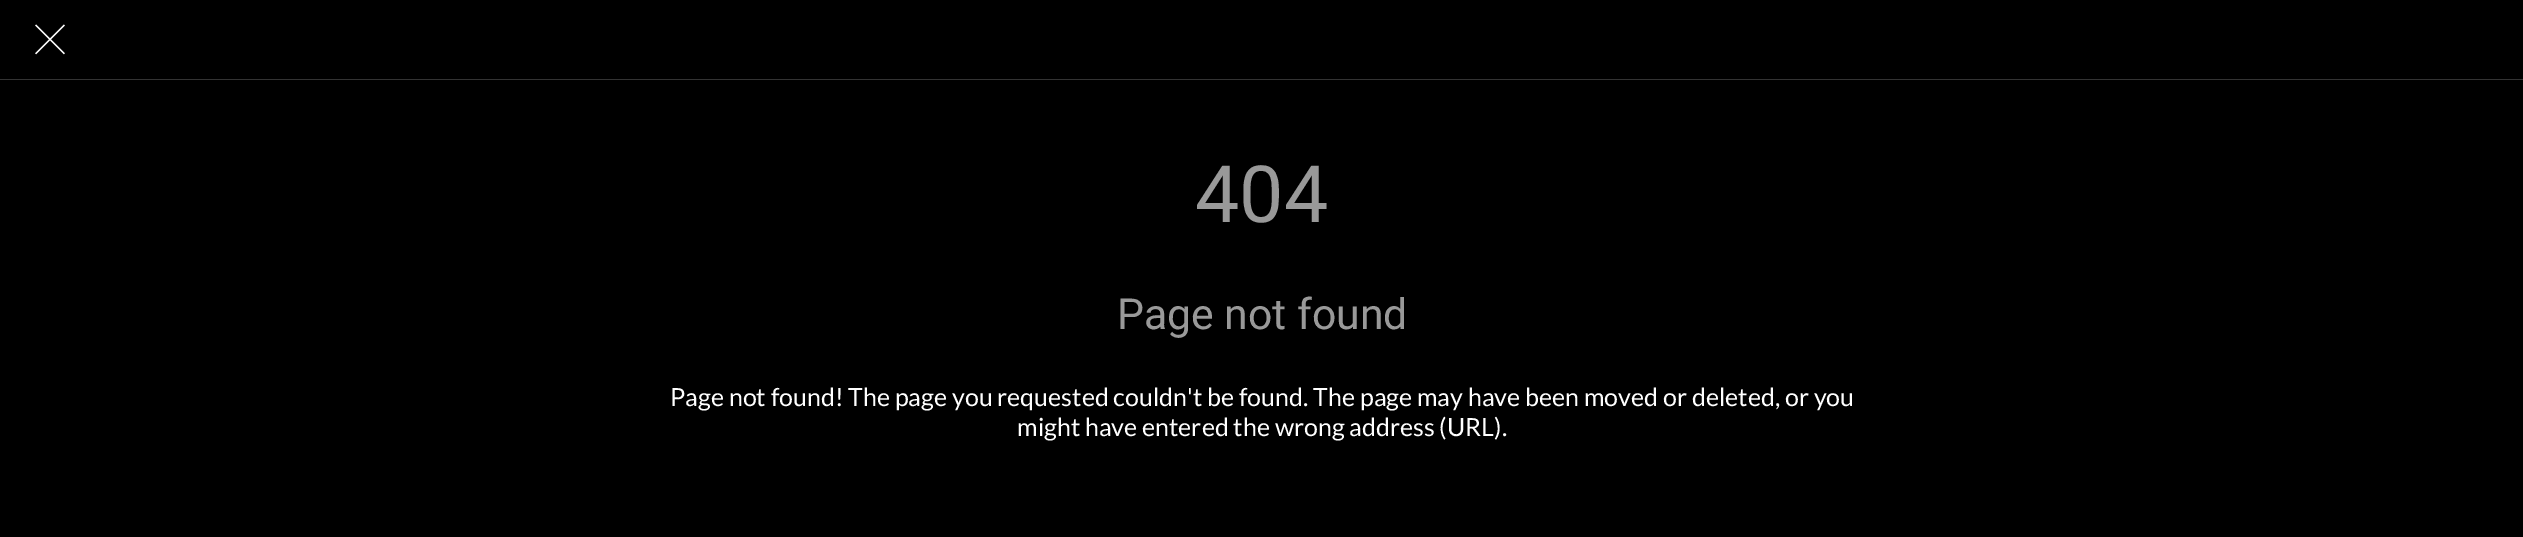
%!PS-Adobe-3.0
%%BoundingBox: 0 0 2523 537
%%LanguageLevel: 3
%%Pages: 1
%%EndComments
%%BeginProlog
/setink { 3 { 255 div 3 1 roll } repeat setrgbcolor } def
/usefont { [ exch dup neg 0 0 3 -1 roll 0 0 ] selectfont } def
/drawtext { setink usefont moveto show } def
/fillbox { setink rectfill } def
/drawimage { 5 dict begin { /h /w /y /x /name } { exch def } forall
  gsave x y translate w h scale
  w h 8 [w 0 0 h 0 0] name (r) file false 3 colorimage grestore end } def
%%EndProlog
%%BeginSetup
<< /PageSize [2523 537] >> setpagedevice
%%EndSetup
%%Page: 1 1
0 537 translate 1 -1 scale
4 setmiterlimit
0 0 2523 537 0 0 0 fillbox
0 79 2523 1 51 51 51 fillbox
(assets/img1.rgb) 35 24 30 31 drawimage
(404) 1195 222 /Roboto-Regular 79 153 153 153 drawtext
(Page not found) 1117 329 /Roboto-Regular 42.75 153 153 153 drawtext
(Page not found! The page you requested couldn't be found. The page may have been moved or deleted, or you) 670 406 /Lato-Regular 25 255 255 255 drawtext
(might have entered the wrong address \(URL\).) 1017 436 /Lato-Regular 25 255 255 255 drawtext
showpage
%%EOF
